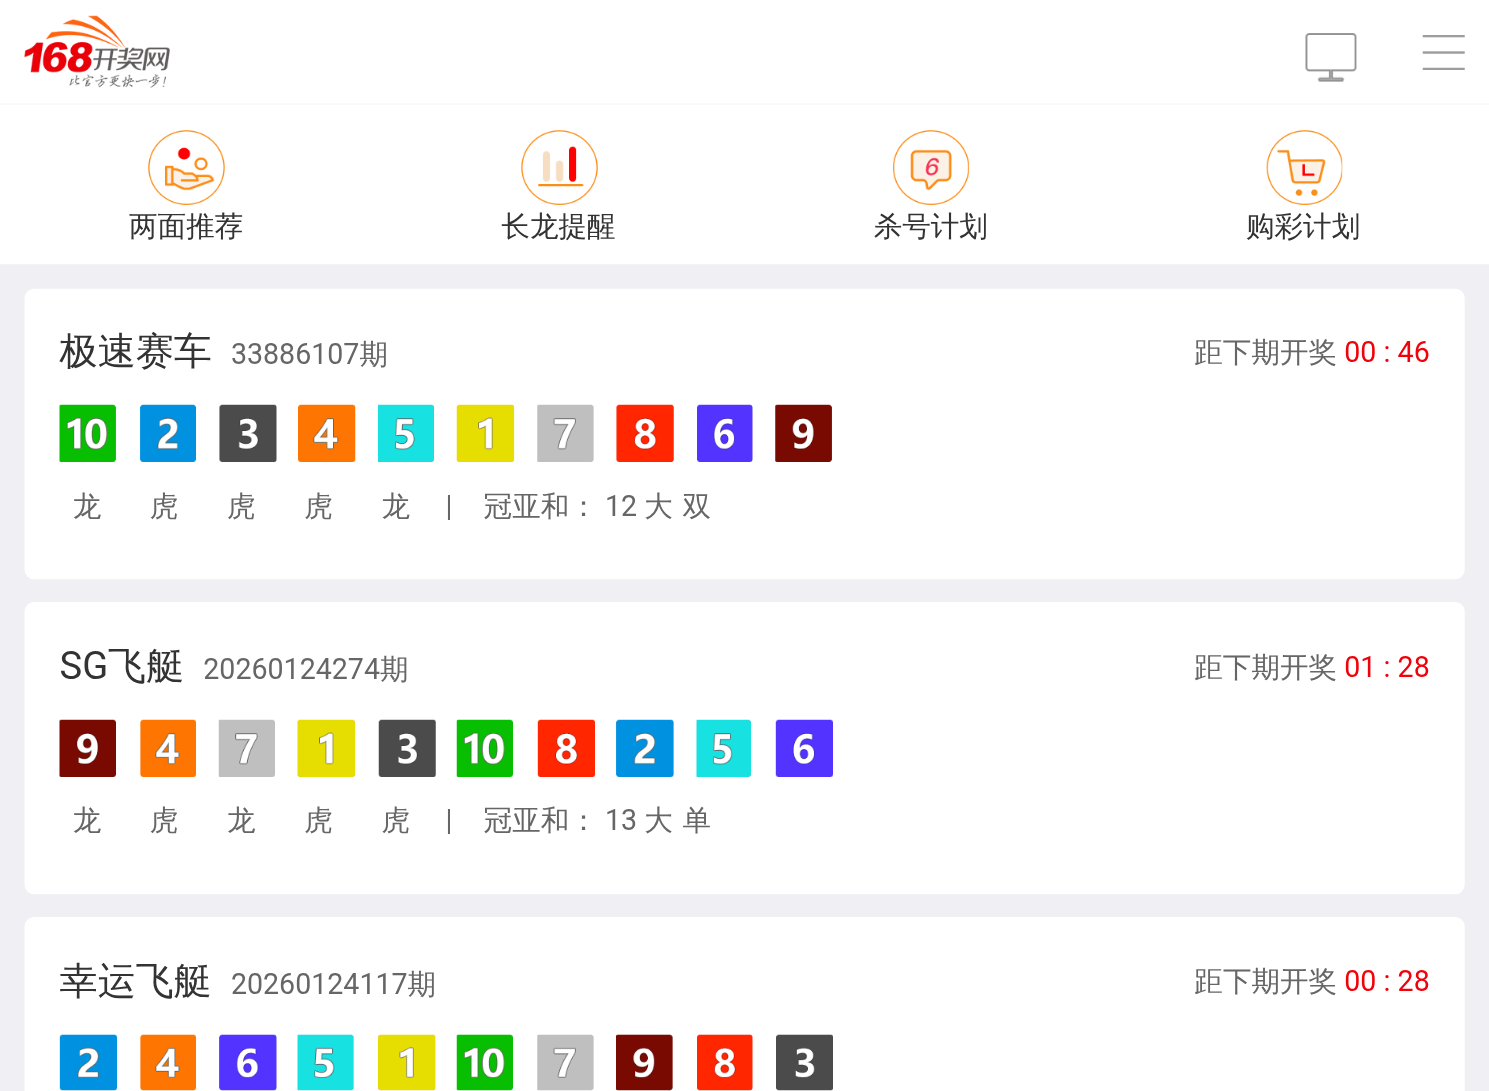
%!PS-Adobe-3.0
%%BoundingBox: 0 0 1489 1091
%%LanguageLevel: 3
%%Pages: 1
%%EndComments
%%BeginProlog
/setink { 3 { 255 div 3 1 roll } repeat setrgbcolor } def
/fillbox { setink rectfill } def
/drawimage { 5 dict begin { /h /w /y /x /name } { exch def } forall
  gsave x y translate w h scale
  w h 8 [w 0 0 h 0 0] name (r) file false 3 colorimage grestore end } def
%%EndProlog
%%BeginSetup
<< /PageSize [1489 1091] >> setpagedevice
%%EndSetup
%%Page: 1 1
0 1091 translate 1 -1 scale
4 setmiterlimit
0 0 1489 1091 255 255 255 fillbox
(assets/img1.rgb) 0 15 1489 1076 drawimage
showpage
%%EOF
